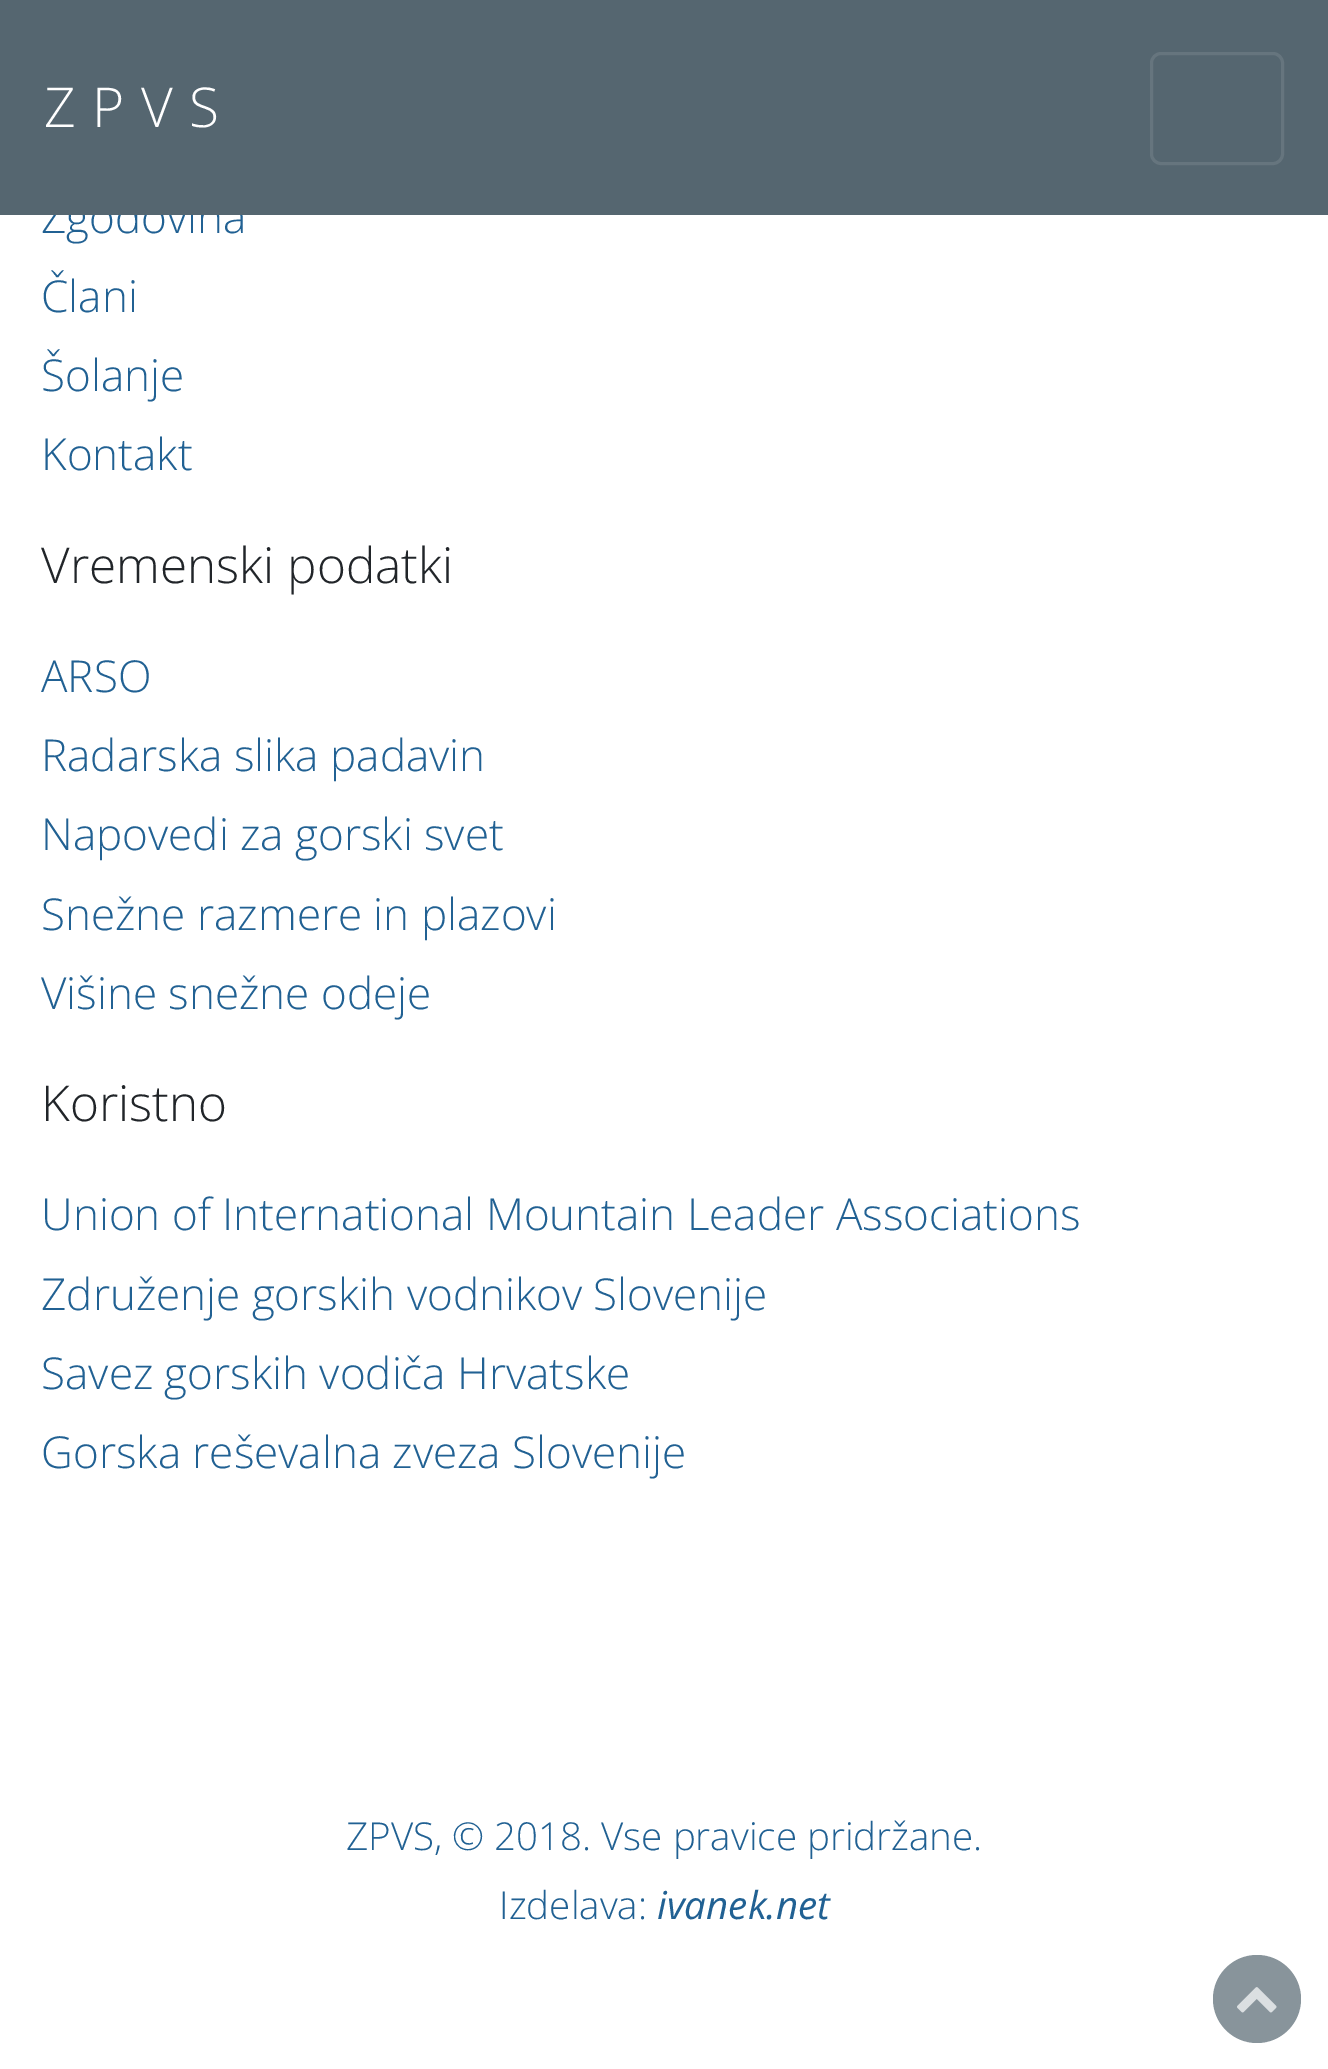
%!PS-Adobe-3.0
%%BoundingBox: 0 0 1328 2069
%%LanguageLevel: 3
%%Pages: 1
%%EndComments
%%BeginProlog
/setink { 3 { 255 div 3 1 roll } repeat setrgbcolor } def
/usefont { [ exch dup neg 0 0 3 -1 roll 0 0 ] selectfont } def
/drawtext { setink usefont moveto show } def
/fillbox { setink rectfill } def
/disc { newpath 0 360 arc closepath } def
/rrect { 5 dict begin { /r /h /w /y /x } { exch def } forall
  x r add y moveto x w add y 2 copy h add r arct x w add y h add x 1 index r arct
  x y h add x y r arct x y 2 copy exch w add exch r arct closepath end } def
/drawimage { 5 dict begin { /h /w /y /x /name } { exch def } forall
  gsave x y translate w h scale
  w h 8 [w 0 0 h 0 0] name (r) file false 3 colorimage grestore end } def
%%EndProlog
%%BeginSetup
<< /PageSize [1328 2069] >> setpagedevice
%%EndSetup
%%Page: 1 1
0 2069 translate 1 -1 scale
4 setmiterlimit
0 0 1328 2069 255 255 255 fillbox
(Zgodovina) 41 233 /OpenSans-Light 44 33 97 147 drawtext
0 0 1328 215 85 102 112 fillbox
/OpenSans-Light 55 usefont
255 255 255 setink
44 127 moveto 16.5 0 (ZPVS) ashow
102 117 126 setink
3 setlinewidth
1151.5 53.5 131 110 9.5 rrect stroke
(Člani) 41 312 /OpenSans-Light 44 33 97 147 drawtext
(Šolanje) 41 391 /OpenSans-Light 44 33 97 147 drawtext
(Kontakt) 41 470 /OpenSans-Light 44 33 97 147 drawtext
(Vremenski podatki) 41 583 /OpenSans-Light 49.5 33 37 41 drawtext
(ARSO) 41 692 /OpenSans-Light 44 33 97 147 drawtext
(Radarska slika padavin) 41 771 /OpenSans-Light 44 33 97 147 drawtext
(Napovedi za gorski svet) 41 850 /OpenSans-Light 44 33 97 147 drawtext
(Snežne razmere in plazovi) 41 930 /OpenSans-Light 44 33 97 147 drawtext
(Višine snežne odeje) 41 1009 /OpenSans-Light 44 33 97 147 drawtext
(Koristno) 41 1121 /OpenSans-Light 49.5 33 37 41 drawtext
(Union of International Mountain Leader Associations) 41 1230 /OpenSans-Light 44 33 97 147 drawtext
(Združenje gorskih vodnikov Slovenije) 41 1310 /OpenSans-Light 44 33 97 147 drawtext
(Savez gorskih vodiča Hrvatske) 41 1389 /OpenSans-Light 44 33 97 147 drawtext
(Gorska reševalna zveza Slovenije) 41 1468 /OpenSans-Light 44 33 97 147 drawtext
(ZPVS, © 2018. Vse pravice pridržane.) 346 1850 /OpenSans-Light 38.5 33 97 147 drawtext
(Izdelava:) 499 1919 /OpenSans-Light 38.5 33 97 147 drawtext
(ivanek.net) 657 1919 /OpenSans-Italic 38.5 33 97 147 drawtext
136 148 155 setink
1257 1999 44 disc fill
(assets/img1.rgb) 1237 1987 40 26 drawimage
showpage
%%EOF
